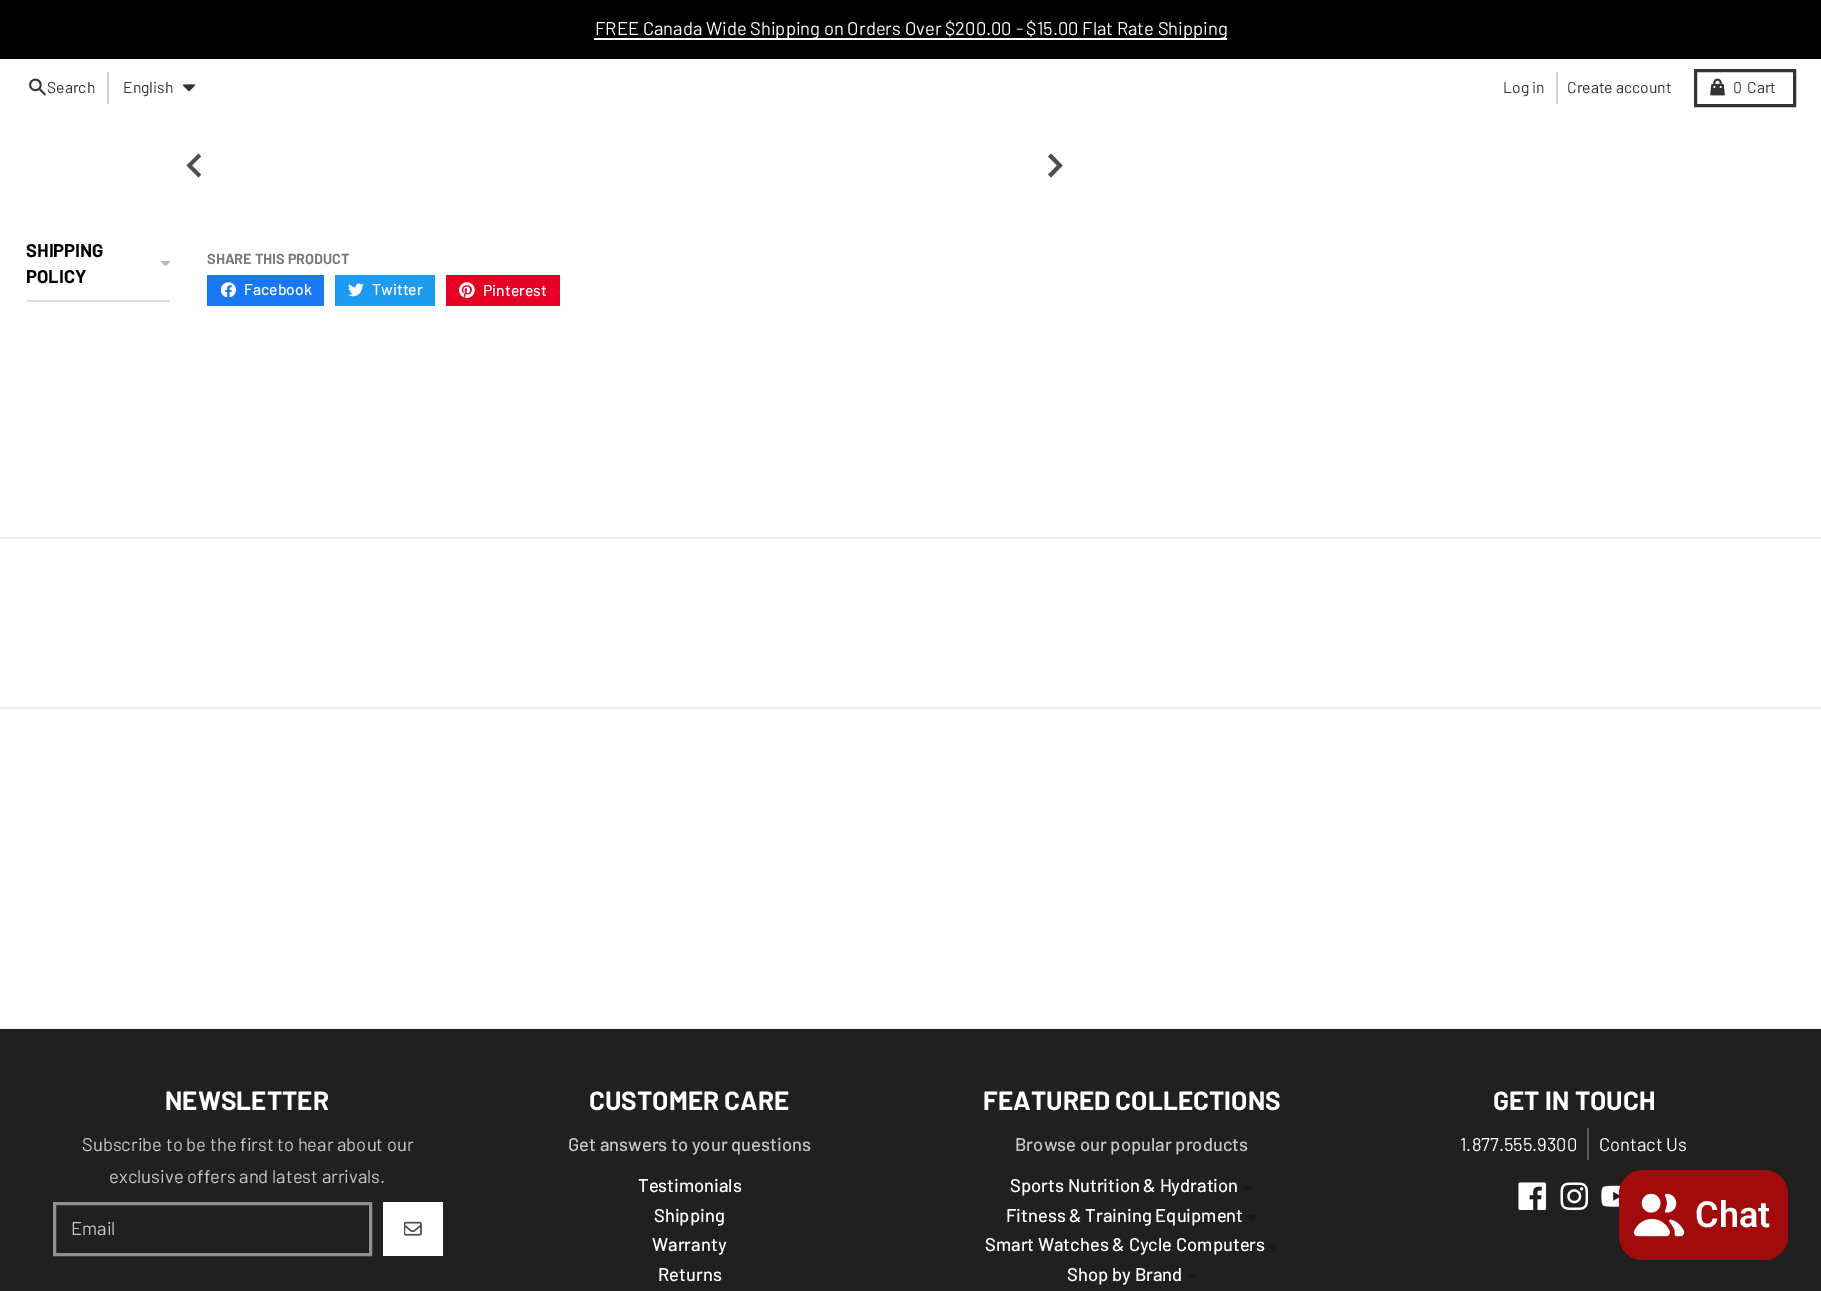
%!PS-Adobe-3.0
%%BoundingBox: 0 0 1821 1291
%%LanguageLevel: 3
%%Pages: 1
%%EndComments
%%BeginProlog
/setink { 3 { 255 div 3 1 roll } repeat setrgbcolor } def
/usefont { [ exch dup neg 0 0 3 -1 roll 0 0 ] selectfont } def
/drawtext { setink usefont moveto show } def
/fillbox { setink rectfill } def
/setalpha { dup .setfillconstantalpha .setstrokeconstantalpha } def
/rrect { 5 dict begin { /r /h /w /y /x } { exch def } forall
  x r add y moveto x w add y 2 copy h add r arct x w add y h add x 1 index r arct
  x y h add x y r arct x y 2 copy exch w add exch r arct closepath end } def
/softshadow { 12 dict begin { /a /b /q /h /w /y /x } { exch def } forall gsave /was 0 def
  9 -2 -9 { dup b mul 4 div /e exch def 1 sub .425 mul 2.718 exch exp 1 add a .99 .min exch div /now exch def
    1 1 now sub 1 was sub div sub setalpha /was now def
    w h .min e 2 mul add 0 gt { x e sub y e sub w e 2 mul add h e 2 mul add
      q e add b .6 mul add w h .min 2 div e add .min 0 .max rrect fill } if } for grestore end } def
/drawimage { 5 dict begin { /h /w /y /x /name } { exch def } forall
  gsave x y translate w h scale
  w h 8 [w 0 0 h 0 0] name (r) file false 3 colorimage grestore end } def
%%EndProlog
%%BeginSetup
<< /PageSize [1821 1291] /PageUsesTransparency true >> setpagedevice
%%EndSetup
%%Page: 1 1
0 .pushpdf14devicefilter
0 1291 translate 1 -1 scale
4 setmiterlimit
0 0 1821 1291 255 255 255 fillbox
0 0 1821 59 0 0 0 fillbox
594 38 633 2 255 255 255 fillbox
(FREE Canada Wide Shipping on Orders Over $200.00 - $15.00 Flat Rate Shipping) 595 35 /Barlow-Regular 18.4 255 255 255 drawtext
(assets/img1.rgb) 29 78 17 18 drawimage
(Search) 47 93 /Barlow-Regular 15.75 51 51 51 drawtext
107 72 2 32 214 214 214 fillbox
(English) 123 93 /Barlow-Regular 15.75 51 51 51 drawtext
(assets/img2.rgb) 182 84 14 8 drawimage
(Log in) 1503 93 /Barlow-Regular 15.75 51 51 51 drawtext
1556 72 2 32 214 214 214 fillbox
(Create account) 1567 93 /Barlow-Regular 15.75 51 51 51 drawtext
3 setlinewidth
1695.5 70.5 99 35 rectstroke
(assets/img3.rgb) 1710 78 15 18 drawimage
(0) 1733 93 /Barlow-Regular 15.75 51 51 51 drawtext
(Cart) 1747 93 /Barlow-Regular 15.75 51 51 51 drawtext
77 77 77 setink
198.5 153.5 moveto 201 156.5 lineto 192 165.5 lineto 201 174.5 lineto 198.5 177.5 lineto 186.5 165.5 lineto closepath fill
1051 153.5 moveto 1048 156.5 lineto 1057 165.5 lineto 1048 174.5 lineto 1051 177.5 lineto 1062.5 165.5 lineto closepath fill
27 300 143 2 220 220 220 fillbox
(SHIPPING) 26 257 /Barlow-Bold 18.4 0 0 0 drawtext
(POLICY) 26 283 /Barlow-Bold 18.4 0 0 0 drawtext
(assets/img4.rgb) 161 260 9 7 drawimage
(SHARE THIS PRODUCT) 207 264 /Barlow-Bold 14.5 123 123 123 drawtext
207 275 117 31 24 119 242 fillbox
(assets/img5.rgb) 221 282 15 15 drawimage
(Facebook) 244 295 /Barlow-Medium 15.75 255 255 255 drawtext
335 275 100 31 29 155 240 fillbox
(assets/img6.rgb) 348 283 16 14 drawimage
(Twitter) 372 295 /Barlow-Medium 15.75 255 255 255 drawtext
446 275 114 31 230 0 36 fillbox
(assets/img7.rgb) 459 282 16 16 drawimage
(Pinterest) 483 296 /Barlow-Medium 15.75 255 255 255 drawtext
0 537 1821 2 237 237 237 fillbox
0 707 1821 2 237 237 237 fillbox
0 1028 1821 1 237 237 237 fillbox
0 1029 1821 262 32 32 32 fillbox
(NEWSLETTER) 165 1110 /Barlow-Bold 26.25 255 255 255 drawtext
(Subscribe to be the first to hear about our) 82 1151 /Barlow-Regular 18.4 199 199 199 drawtext
(exclusive offers and latest arrivals.) 109 1183 /Barlow-Regular 18.4 199 199 199 drawtext
144 144 144 setink
54.5 1203.5 316 51 rectstroke
(Email) 71 1235 /Barlow-Regular 18.4 199 199 199 drawtext
383 1202 60 54 255 255 255 fillbox
(assets/img8.rgb) 404 1221 18 15 drawimage
(CUSTOMER CARE) 589 1110 /Barlow-Bold 26.25 255 255 255 drawtext
(Get answers to your questions) 568 1151 /Barlow-Medium 18.4 199 199 199 drawtext
(Testimonials) 638 1192 /Barlow-Medium 18.4 255 255 255 drawtext
(Shipping) 654 1222 /Barlow-Medium 18.4 255 255 255 drawtext
(Warranty) 652 1251 /Barlow-Medium 18.4 255 255 255 drawtext
(Returns) 658 1281 /Barlow-Medium 18.4 255 255 255 drawtext
(FEATURED COLLECTIONS) 983 1110 /Barlow-Bold 26.25 255 255 255 drawtext
(Browse our popular products) 1015 1151 /Barlow-Medium 18.4 199 199 199 drawtext
(Sports Nutrition & Hydration) 1010 1192 /Barlow-Medium 18.4 255 255 255 drawtext
(assets/img9.rgb) 1243 1185 9 6 drawimage
(Fitness & Training Equipment) 1006 1222 /Barlow-Medium 18.4 255 255 255 drawtext
(assets/img10.rgb) 1247 1215 9 6 drawimage
(Smart Watches & Cycle Computers) 985 1251 /Barlow-Medium 18.4 255 255 255 drawtext
(assets/img10.rgb) 1268 1245 9 6 drawimage
(Shop by Brand) 1067 1281 /Barlow-Medium 18.4 255 255 255 drawtext
(assets/img11.rgb) 1187 1274 10 5 drawimage
(GET IN TOUCH) 1493 1110 /Barlow-Bold 26.25 255 255 255 drawtext
(1.877.555.9300) 1460 1151 /Barlow-Regular 18.4 255 255 255 drawtext
1587 1128 2 32 88 88 88 fillbox
(Contact Us) 1599 1151 /Barlow-Regular 18.4 255 255 255 drawtext
(assets/img12.rgb) 1518 1182 29 28 drawimage
(assets/img13.rgb) 1560 1182 29 28 drawimage
(assets/img14.rgb) 1601 1185 20 22 drawimage
0 0 0 setink
1619 1170 169 90 24 4 0.15 softshadow
161 11 11 setink
1619 1170 169 90 24 rrect fill
(assets/img15.rgb) 1633 1193 52 44 drawimage
(Chat) 1695 1227 /Roboto-SemiBold 36 255 255 255 drawtext
.poppdf14devicefilter showpage
%%EOF
